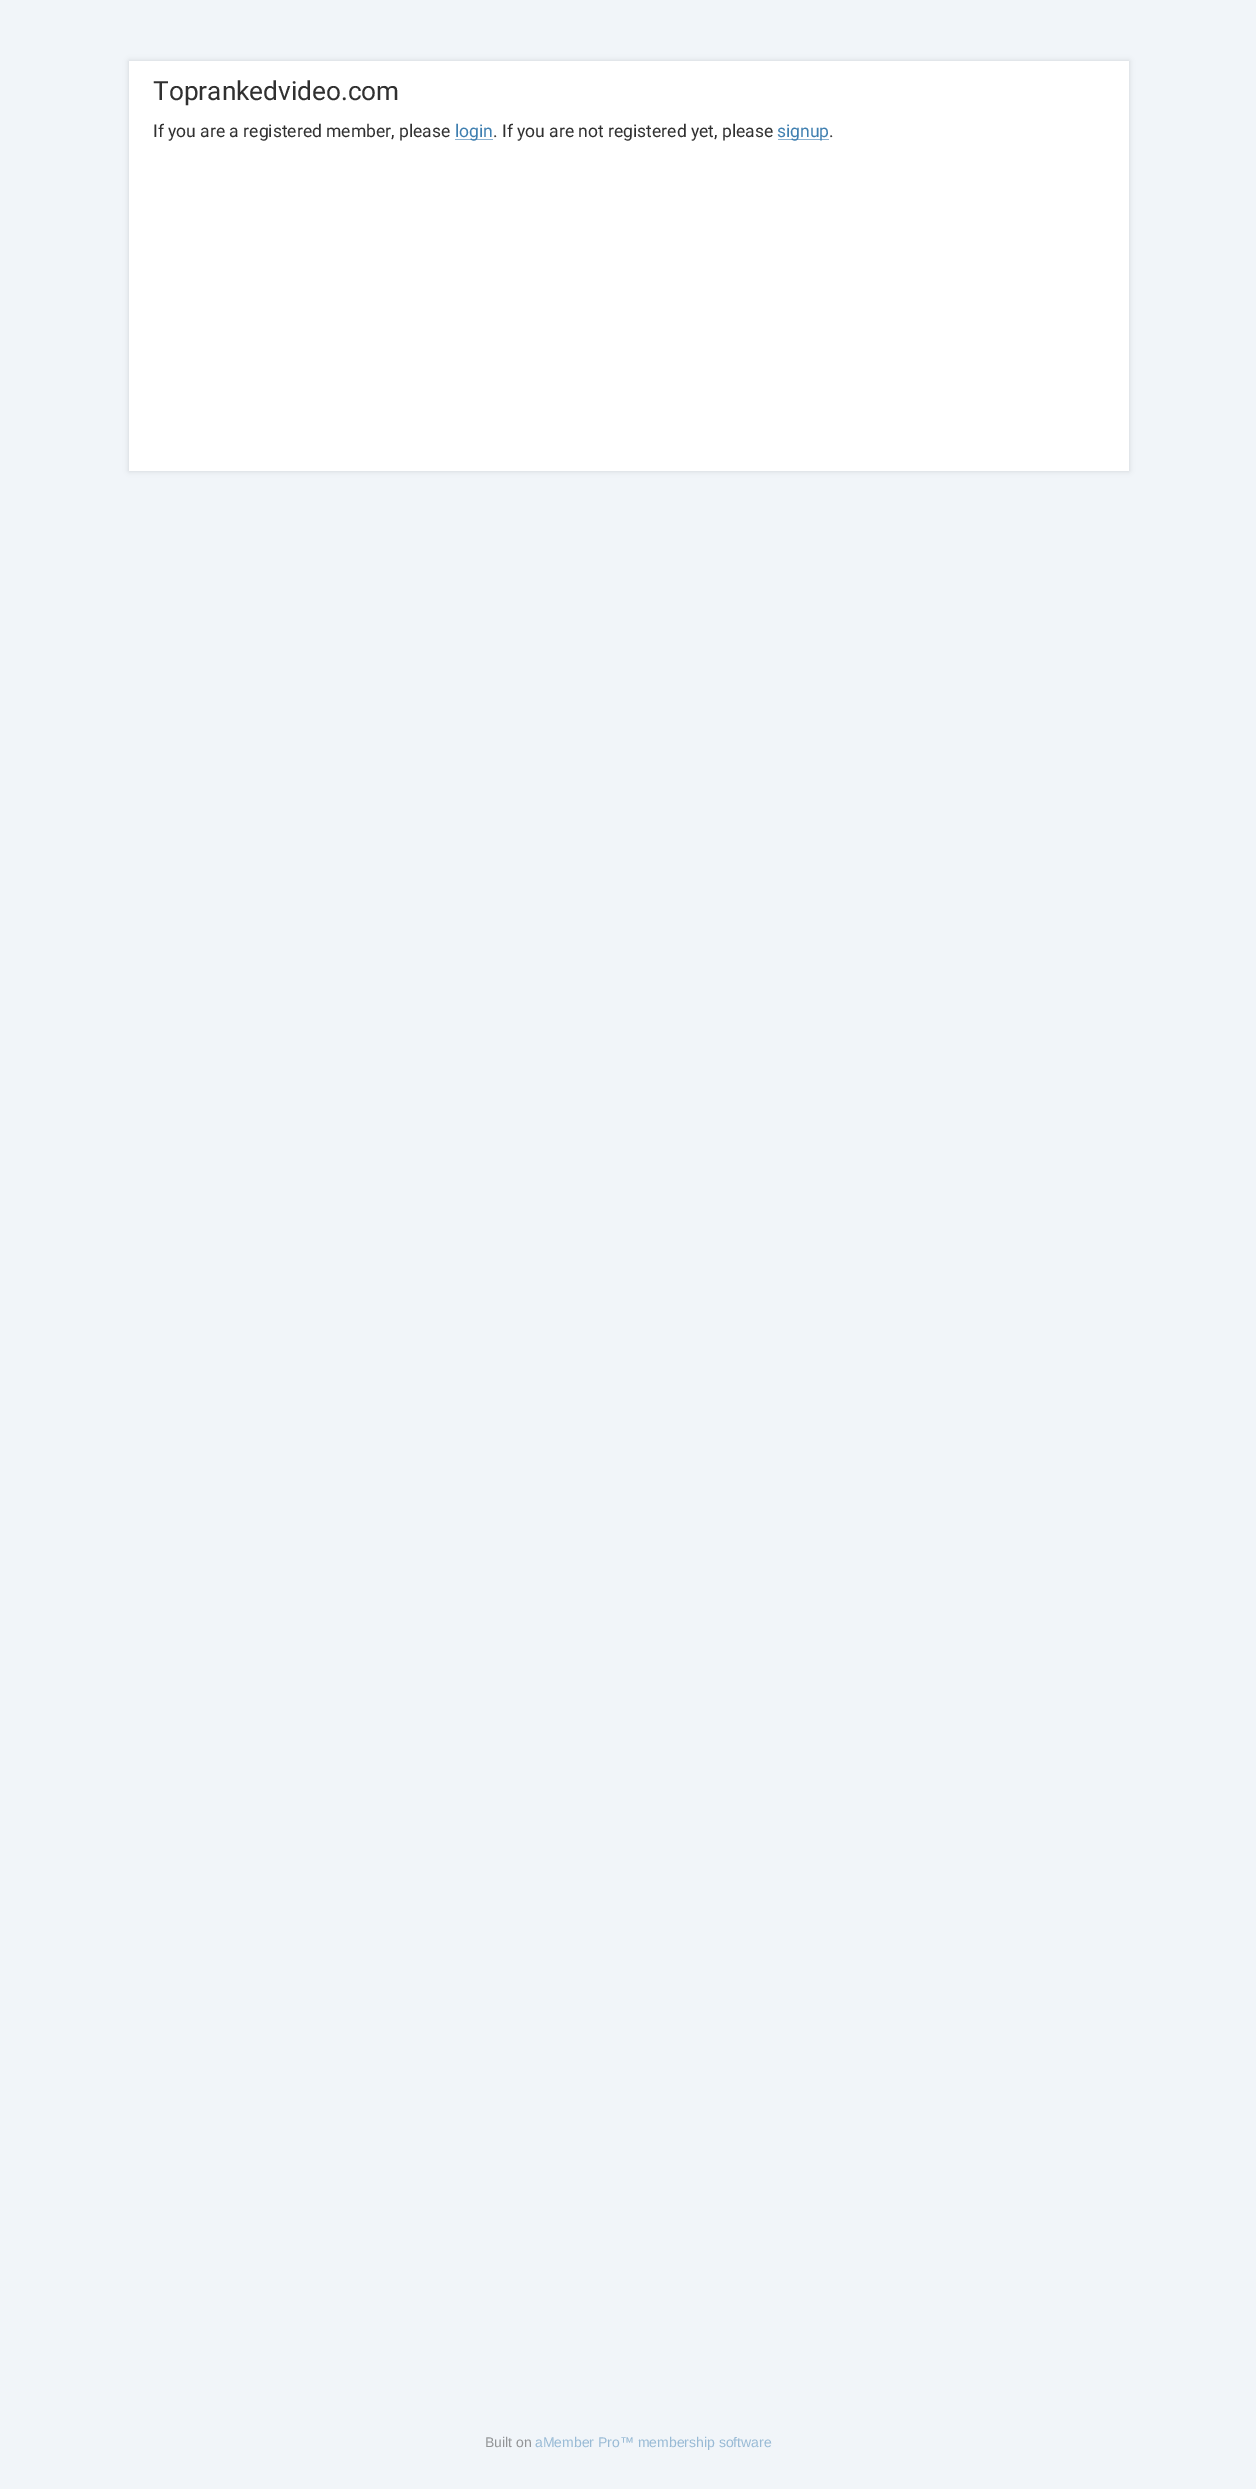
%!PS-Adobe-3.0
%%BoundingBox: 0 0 1256 2489
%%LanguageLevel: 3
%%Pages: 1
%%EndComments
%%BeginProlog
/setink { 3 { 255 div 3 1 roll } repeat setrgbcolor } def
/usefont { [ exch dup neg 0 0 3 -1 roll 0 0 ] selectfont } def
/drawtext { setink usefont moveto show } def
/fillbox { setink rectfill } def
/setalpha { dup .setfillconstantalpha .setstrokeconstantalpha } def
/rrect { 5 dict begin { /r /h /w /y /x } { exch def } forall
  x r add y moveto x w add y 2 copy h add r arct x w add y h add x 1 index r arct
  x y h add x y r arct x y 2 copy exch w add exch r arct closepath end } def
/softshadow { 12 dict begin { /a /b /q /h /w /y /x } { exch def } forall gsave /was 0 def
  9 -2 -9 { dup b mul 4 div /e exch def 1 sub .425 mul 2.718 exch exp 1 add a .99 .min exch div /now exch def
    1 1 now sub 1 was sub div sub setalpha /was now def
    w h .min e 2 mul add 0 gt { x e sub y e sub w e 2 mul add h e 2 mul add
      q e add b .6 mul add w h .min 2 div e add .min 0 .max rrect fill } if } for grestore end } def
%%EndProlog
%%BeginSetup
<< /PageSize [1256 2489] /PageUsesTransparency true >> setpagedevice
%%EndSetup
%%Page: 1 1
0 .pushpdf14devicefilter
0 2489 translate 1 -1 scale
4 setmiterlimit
0 0 1256 2489 241 245 249 fillbox
0 0 0 setink
129 61 1000 410 0 3 0.13 softshadow
129 61 1000 410 255 255 255 fillbox
(Toprankedvideo.com) 153 100 /Roboto-Regular 26.25 48 48 48 drawtext
(If you are a registered member, please) 153 137 /Roboto-Regular 17.5 48 48 48 drawtext
455 139 38 1 140 178 208 fillbox
(login) 455 137 /Roboto-Regular 17.5 63 127 176 drawtext
(. If you are not registered yet, please) 493 137 /Roboto-Regular 17.5 48 48 48 drawtext
778 139 51 1 140 178 208 fillbox
(signup) 777 137 /Roboto-Regular 17.5 63 127 176 drawtext
(.) 829 137 /Roboto-Regular 17.5 48 48 48 drawtext
(Built on) 485 2447 /LiberationSans-Regular 14 146 148 150 drawtext
(aMember Pro™ membership software) 535 2447 /LiberationSans-Regular 14 152 186 213 drawtext
.poppdf14devicefilter showpage
%%EOF
